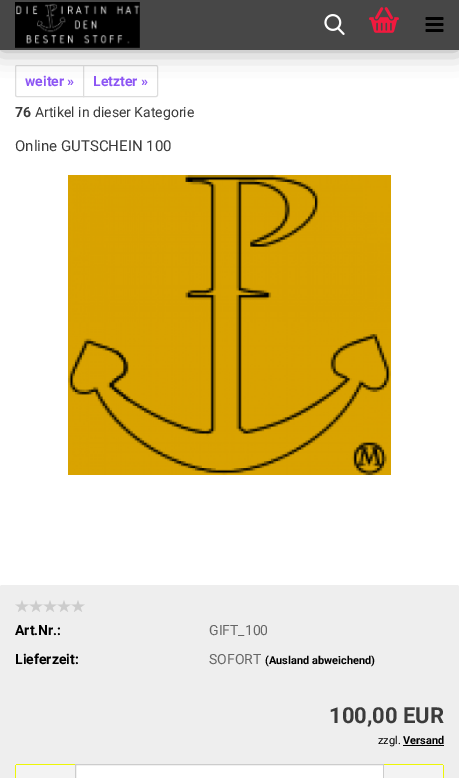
%!PS-Adobe-3.0
%%BoundingBox: 0 0 459 778
%%LanguageLevel: 3
%%Pages: 1
%%EndComments
%%BeginProlog
/setink { 3 { 255 div 3 1 roll } repeat setrgbcolor } def
/usefont { [ exch dup neg 0 0 3 -1 roll 0 0 ] selectfont } def
/drawtext { setink usefont moveto show } def
/fillbox { setink rectfill } def
/setalpha { dup .setfillconstantalpha .setstrokeconstantalpha } def
/rrect { 5 dict begin { /r /h /w /y /x } { exch def } forall
  x r add y moveto x w add y 2 copy h add r arct x w add y h add x 1 index r arct
  x y h add x y r arct x y 2 copy exch w add exch r arct closepath end } def
/softshadow { 12 dict begin { /a /b /q /h /w /y /x } { exch def } forall gsave /was 0 def
  9 -2 -9 { dup b mul 4 div /e exch def 1 sub .425 mul 2.718 exch exp 1 add a .99 .min exch div /now exch def
    1 1 now sub 1 was sub div sub setalpha /was now def
    w h .min e 2 mul add 0 gt { x e sub y e sub w e 2 mul add h e 2 mul add
      q e add b .6 mul add w h .min 2 div e add .min 0 .max rrect fill } if } for grestore end } def
/drawimage { 5 dict begin { /h /w /y /x /name } { exch def } forall
  gsave x y translate w h scale
  w h 8 [w 0 0 h 0 0] name (r) file false 3 colorimage grestore end } def
%%EndProlog
%%BeginSetup
<< /PageSize [459 778] /PageUsesTransparency true >> setpagedevice
%%EndSetup
%%Page: 1 1
0 .pushpdf14devicefilter
0 778 translate 1 -1 scale
4 setmiterlimit
0 0 459 778 255 255 255 fillbox
221 221 221 setink
17 65.5 moveto 83.5 65.5 lineto 83.5 96.5 lineto 17 96.5 lineto 16 96.5 15.5 96 15.5 95 curveto 15.5 67 lineto 15.5 66 16 65.5 17 65.5 curveto closepath stroke
255 255 255 setink
83.5 65.5 moveto 156 65.5 lineto 157 65.5 157.5 66 157.5 67 curveto 157.5 95 lineto 157.5 96 157 96.5 156 96.5 curveto 83.5 96.5 lineto closepath gsave fill grestore
221 221 221 setink
stroke
0 0 0 setink
0 0 459 50 0 12.5 0.35 softshadow
0 0 459 50 71 71 71 fillbox
(assets/img1.rgb) 15 2 125 46 drawimage
(assets/img2.rgb) 324 14 21 21 drawimage
(assets/img3.rgb) 369 7 30 26 drawimage
(assets/img4.rgb) 425 17 19 15 drawimage
(weiter ») 25 86 /Roboto-Bold 14 141 86 244 drawtext
(Letzter ») 93 86 /Roboto-Bold 14 141 86 244 drawtext
(76) 15 117 /Roboto-Bold 14 59 59 59 drawtext
(Artikel in dieser Kategorie) 35 117 /Roboto-Regular 14 59 59 59 drawtext
(Online GUTSCHEIN 100) 15 151 /Roboto-Regular 15 59 59 59 drawtext
(assets/img5.rgb) 68 175 323 300 drawimage
238 238 238 setink
0 585 459 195 2 rrect fill
(assets/img6.rgb) 15 600 14 12 drawimage
(assets/img6.rgb) 29 600 14 12 drawimage
(assets/img6.rgb) 43 600 14 12 drawimage
(assets/img6.rgb) 57 600 14 12 drawimage
(assets/img6.rgb) 71 600 14 12 drawimage
(Art.Nr.:) 15 635 /Roboto-Bold 14 0 0 0 drawtext
(GIFT_100) 209 635 /Roboto-Regular 14 102 102 102 drawtext
(Lieferzeit:) 15 664 /Roboto-Bold 14 0 0 0 drawtext
(SOFORT) 209 664 /Roboto-Regular 14 102 102 102 drawtext
(\(Ausland abweichend\)) 265 664 /Roboto-Bold 11 0 0 0 drawtext
(100,00 EUR) 329 723 /Roboto-Bold 22 59 59 59 drawtext
(zzgl.) 378 744 /Roboto-Regular 11 0 0 0 drawtext
(Versand) 403 744 /Roboto-Bold 11 0 0 0 drawtext
403 745 41 1 0 0 0 fillbox
243 243 243 setink
17 764 moveto 75 764 lineto 75 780 lineto 17 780 lineto 16 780 15 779 15 778 curveto 15 766 lineto 15 765 16 764 17 764 curveto closepath fill
16 764 59 1 236 246 7 fillbox
15 765 1 13 236 246 7 fillbox
255 255 255 setink
75.5 764.5 moveto 383.5 764.5 lineto 383.5 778.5 lineto 75.5 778.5 lineto closepath gsave fill grestore
204 204 204 setink
stroke
243 243 243 setink
384 764 moveto 442 764 lineto 443 764 444 765 444 766 curveto 444 778 lineto 444 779 443 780 442 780 curveto 384 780 lineto closepath fill
384 764 59 1 236 246 7 fillbox
443 765 1 13 236 246 7 fillbox
.poppdf14devicefilter showpage
%%EOF
